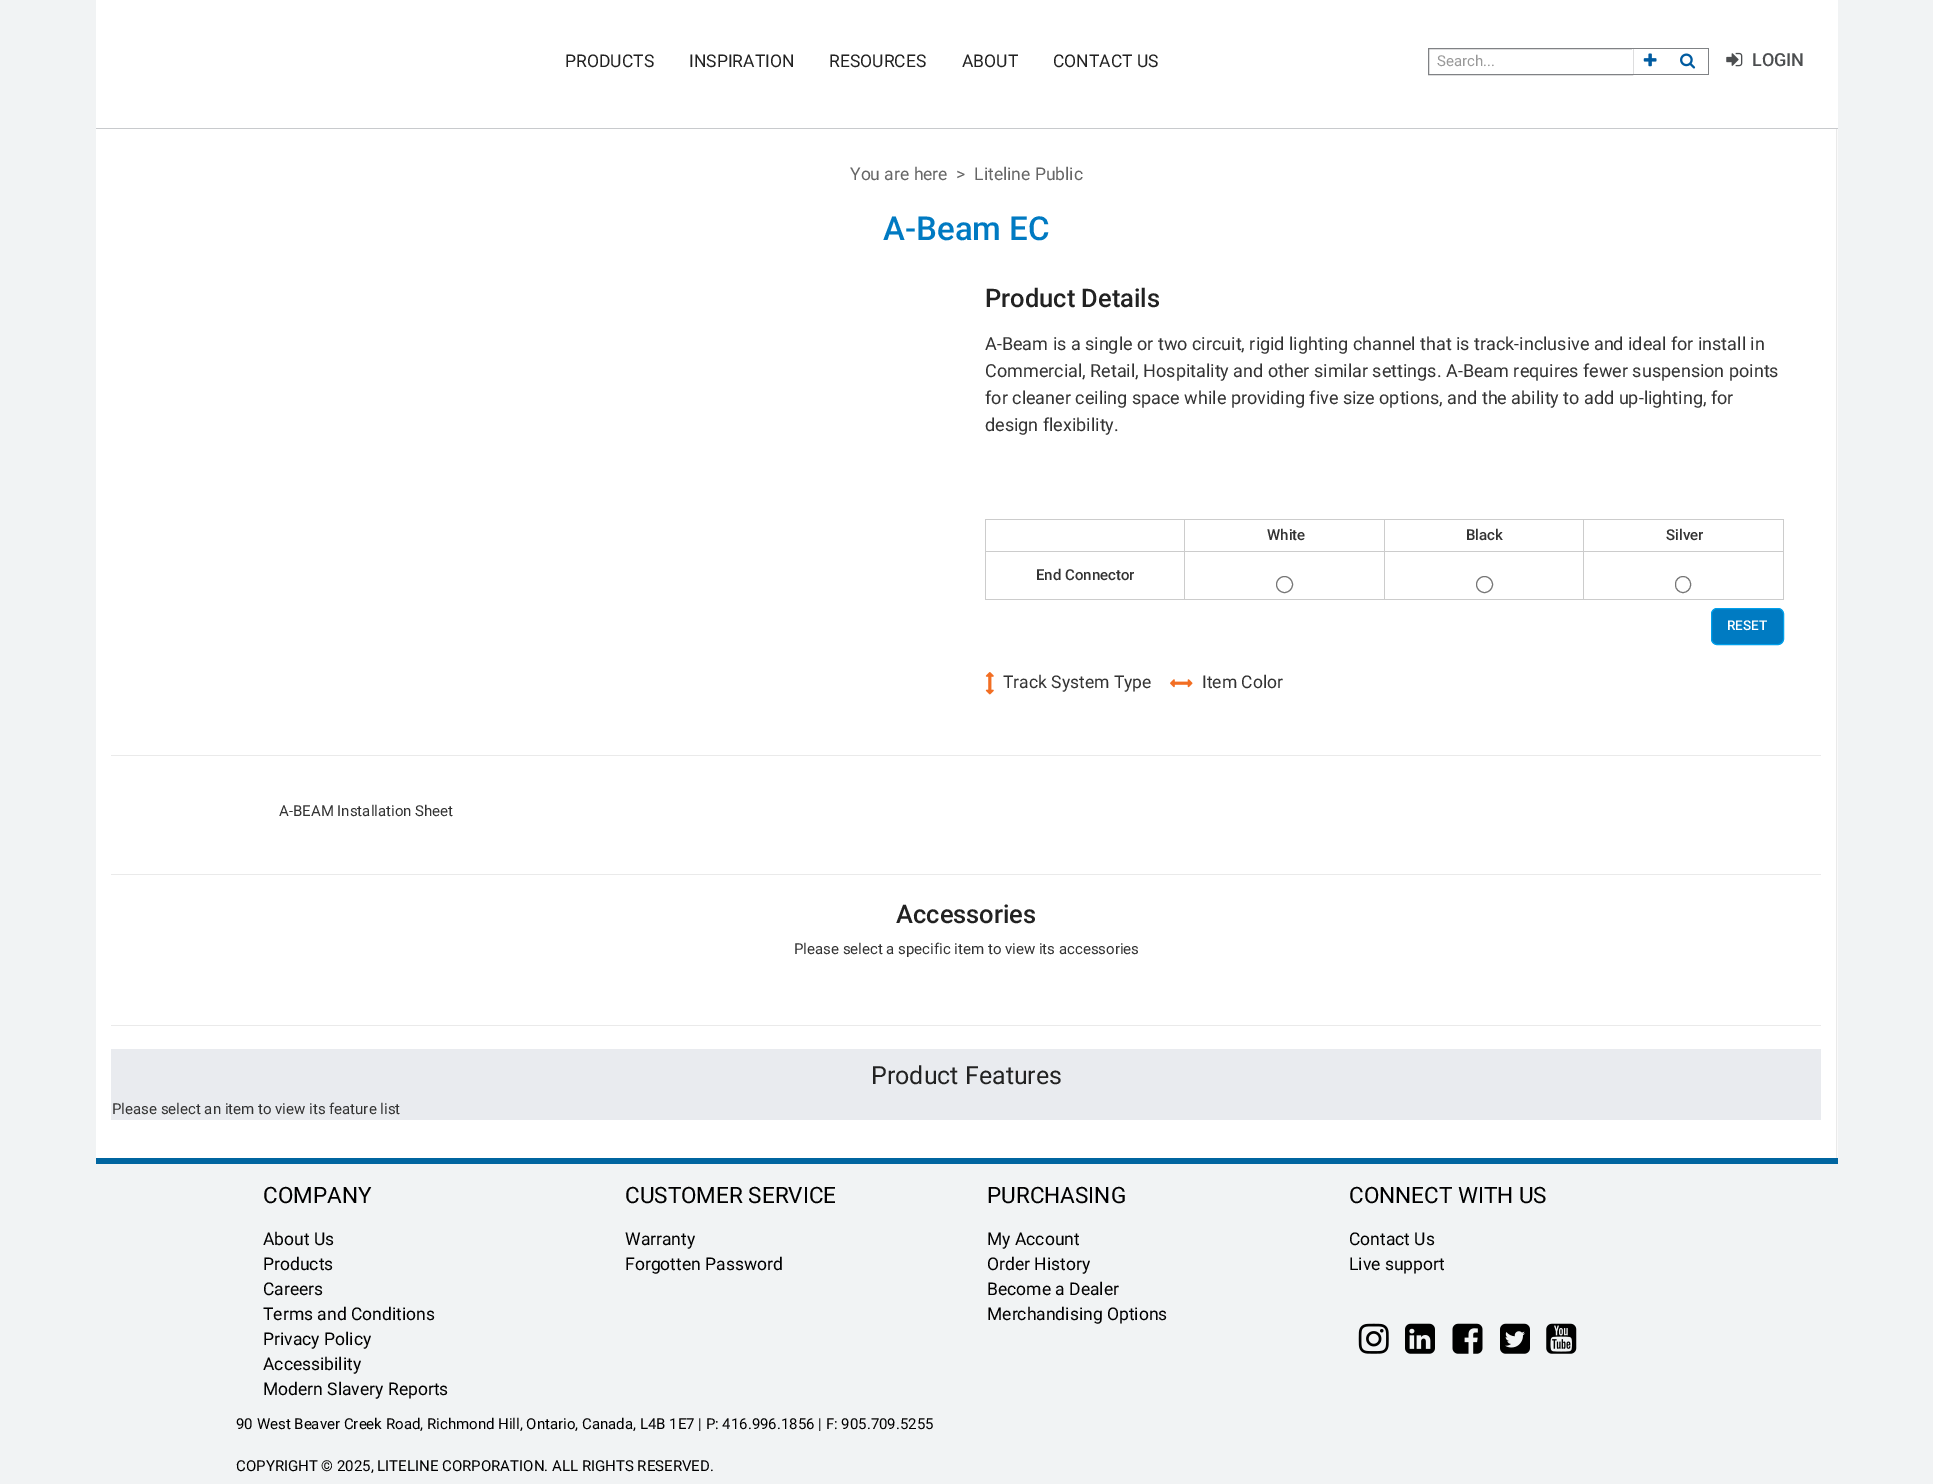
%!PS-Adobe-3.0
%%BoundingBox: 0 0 1933 1484
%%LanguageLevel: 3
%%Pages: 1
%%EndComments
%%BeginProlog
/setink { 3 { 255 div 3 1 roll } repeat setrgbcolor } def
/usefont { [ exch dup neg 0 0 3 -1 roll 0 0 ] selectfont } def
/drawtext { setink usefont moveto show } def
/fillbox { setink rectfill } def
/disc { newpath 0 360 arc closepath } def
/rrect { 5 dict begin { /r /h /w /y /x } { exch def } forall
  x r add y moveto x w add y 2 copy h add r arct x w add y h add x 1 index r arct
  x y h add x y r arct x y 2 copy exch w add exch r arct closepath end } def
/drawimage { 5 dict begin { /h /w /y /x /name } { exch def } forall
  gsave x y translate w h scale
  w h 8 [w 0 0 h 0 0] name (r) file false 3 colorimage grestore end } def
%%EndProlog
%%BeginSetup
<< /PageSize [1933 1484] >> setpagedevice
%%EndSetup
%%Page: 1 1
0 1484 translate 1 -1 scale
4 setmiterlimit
0 0 1933 1484 241 243 244 fillbox
96 0 1742 128 255 255 255 fillbox
(PRODUCTS) 565 67 /Roboto-Regular 17.5 34 34 34 drawtext
(INSPIRATION) 689 67 /Roboto-Regular 17.5 34 34 34 drawtext
(RESOURCES) 829 67 /Roboto-Regular 17.5 34 34 34 drawtext
(ABOUT) 962 67 /Roboto-Regular 17.5 34 34 34 drawtext
(CONTACT US) 1053 67 /Roboto-Regular 17.5 34 34 34 drawtext
128 130 133 setink
1428.5 48.5 204 26 rectstroke
(Search...) 1437 66 /Roboto-Regular 15 153 153 153 drawtext
1632 49 1 25 255 255 255 fillbox
1631 48 78 1 128 130 133 fillbox
1631 74 38 1 128 130 133 fillbox
(assets/img1.rgb) 1643 53 14 14 drawimage
1708 48 1 27 128 130 133 fillbox
1668 74 41 1 128 130 133 fillbox
(assets/img2.rgb) 1680 53 16 16 drawimage
(assets/img3.rgb) 1726 52 17 15 drawimage
(LOGIN) 1752 66 /Roboto-Medium 18 76 78 80 drawtext
96 128 1742 1 200 202 205 fillbox
1837 129 1 1029 250 250 250 fillbox
1836 129 1 1029 234 234 234 fillbox
96 129 1740 1029 255 255 255 fillbox
(You are here  >  Liteline Public) 850 180 /Roboto-Regular 17.5 102 102 102 drawtext
(A-Beam EC) 883 240 /Roboto-Medium 33 0 122 194 drawtext
(Product Details) 985 307 /Roboto-Medium 25.5 34 34 34 drawtext
(A-Beam is a single or two circuit, rigid lighting channel that is track-inclusive and ideal for install in) 985 350 /Roboto-Regular 18 51 51 51 drawtext
(Commercial, Retail, Hospitality and other similar settings. A-Beam requires fewer suspension points) 985 377 /Roboto-Regular 18 51 51 51 drawtext
(for cleaner ceiling space while providing five size options, and the ability to add up-lighting, for) 985 404 /Roboto-Regular 18 51 51 51 drawtext
(design flexibility.) 985 431 /Roboto-Regular 18 51 51 51 drawtext
985 519 799 1 204 204 204 fillbox
1783 519 1 81 204 204 204 fillbox
985 599 799 1 204 204 204 fillbox
985 519 1 81 204 204 204 fillbox
1583 551 201 1 204 204 204 fillbox
1583 551 1 49 204 204 204 fillbox
1384 551 200 1 204 204 204 fillbox
1384 551 1 49 204 204 204 fillbox
1184 551 201 1 204 204 204 fillbox
1184 551 1 49 204 204 204 fillbox
985 551 200 1 204 204 204 fillbox
1184 519 1 34 204 204 204 fillbox
(White) 1267 540 /Roboto-Medium 15 51 51 51 drawtext
1384 519 1 34 204 204 204 fillbox
(Black) 1466 540 /Roboto-Medium 15 51 51 51 drawtext
1583 519 1 34 204 204 204 fillbox
(Silver) 1666 540 /Roboto-Medium 15 51 51 51 drawtext
(End Connector) 1036 580 /Roboto-Medium 15 51 51 51 drawtext
118 118 118 setink
1284.5 584.5 8 disc stroke
1484.5 584.5 8 disc stroke
1675.5 576.5 15 16 7.5 rrect stroke
0 123 194 setink
1711.5 608.5 72 36 5.5 rrect gsave fill grestore
0 159 234 setink
stroke
(RESET) 1727 630 /Roboto-Medium 13.5 255 255 255 drawtext
(assets/img4.rgb) 985 672 9 23 drawimage
(Track System Type) 1003 688 /Roboto-Regular 17.5 51 51 51 drawtext
(assets/img5.rgb) 1170 679 23 9 drawimage
(Item Color) 1202 688 /Roboto-Regular 17.5 51 51 51 drawtext
111 755 1710 1 234 234 234 fillbox
(A-BEAM Installation Sheet) 279 816 /Roboto-Regular 15 51 51 51 drawtext
111 874 1710 1 234 234 234 fillbox
(Accessories) 896 923 /Roboto-Medium 25.5 34 34 34 drawtext
(Please select a specific item to view its accessories) 794 954 /Roboto-Regular 15 51 51 51 drawtext
111 1025 1710 1 234 234 234 fillbox
111 1049 1710 71 233 235 239 fillbox
(Product Features) 871 1084 /Roboto-Regular 25 34 34 34 drawtext
(Please select an item to view its feature list) 112 1114 /Roboto-Regular 15 51 51 51 drawtext
96 1158 1742 6 0 101 160 fillbox
(COMPANY) 263 1203 /Roboto-Regular 22.5 0 0 0 drawtext
(About Us) 263 1245 /Roboto-Regular 17.5 0 0 0 drawtext
(Products) 263 1270 /Roboto-Regular 17.5 0 0 0 drawtext
(Careers) 263 1295 /Roboto-Regular 17.5 0 0 0 drawtext
(Terms and Conditions) 263 1320 /Roboto-Regular 17.5 0 0 0 drawtext
(Privacy Policy) 263 1345 /Roboto-Regular 17.5 0 0 0 drawtext
(Accessibility) 263 1370 /Roboto-Regular 17.5 0 0 0 drawtext
(Modern Slavery Reports) 263 1395 /Roboto-Regular 17.5 0 0 0 drawtext
(CUSTOMER SERVICE) 625 1203 /Roboto-Regular 22.5 0 0 0 drawtext
(Warranty) 625 1245 /Roboto-Regular 17.5 0 0 0 drawtext
(Forgotten Password) 625 1270 /Roboto-Regular 17.5 0 0 0 drawtext
(PURCHASING) 987 1203 /Roboto-Regular 22.5 0 0 0 drawtext
(My Account) 987 1245 /Roboto-Regular 17.5 0 0 0 drawtext
(Order History) 987 1270 /Roboto-Regular 17.5 0 0 0 drawtext
(Become a Dealer) 987 1295 /Roboto-Regular 17.5 0 0 0 drawtext
(Merchandising Options) 987 1320 /Roboto-Regular 17.5 0 0 0 drawtext
(CONNECT WITH US) 1349 1203 /Roboto-Regular 22.5 0 0 0 drawtext
(Contact Us) 1349 1245 /Roboto-Regular 17.5 0 0 0 drawtext
(Live support) 1349 1270 /Roboto-Regular 17.5 0 0 0 drawtext
(assets/img6.rgb) 1358 1323 31 31 drawimage
(assets/img7.rgb) 1405 1323 30 31 drawimage
(assets/img8.rgb) 1452 1323 31 31 drawimage
(assets/img9.rgb) 1500 1323 30 31 drawimage
(assets/img10.rgb) 1546 1323 31 31 drawimage
(90 West Beaver Creek Road, Richmond Hill, Ontario, Canada, L4B 1E7 | P: 416.996.1856 | F: 905.709.5255) 236 1429 /Roboto-Regular 15 0 0 0 drawtext
(COPYRIGHT © 2025, LITELINE CORPORATION. ALL RIGHTS RESERVED.) 236 1471 /Roboto-Regular 15 0 0 0 drawtext
showpage
%%EOF
